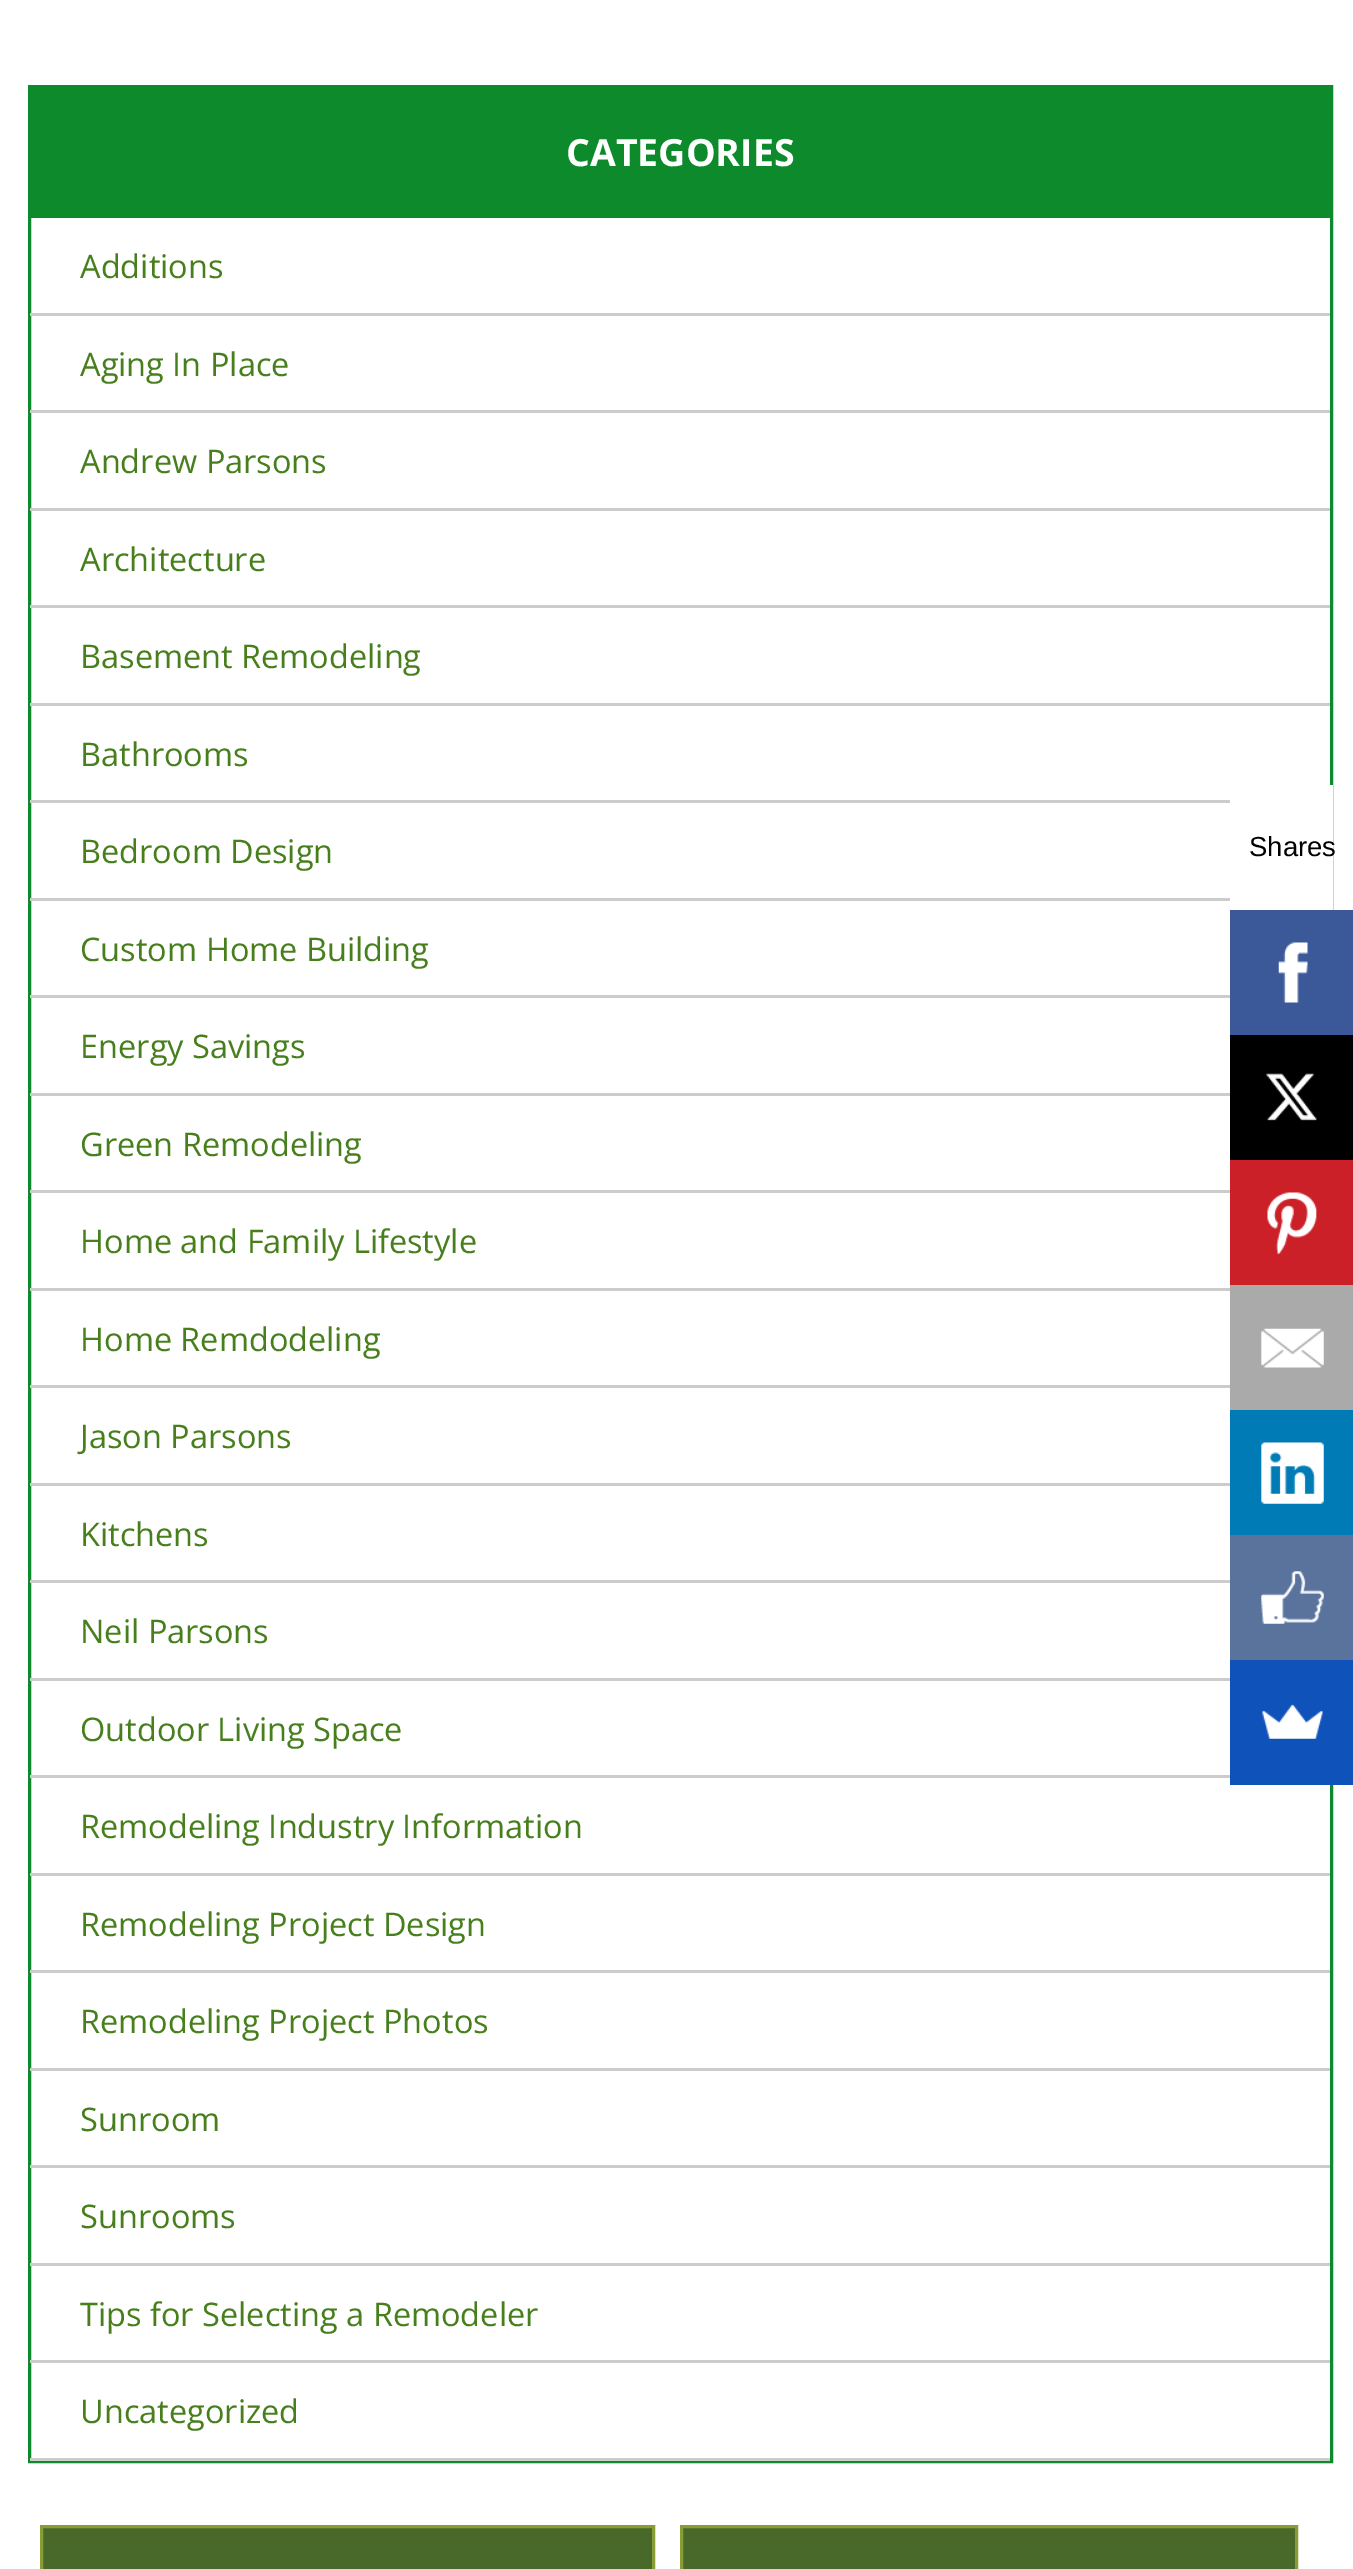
%!PS-Adobe-3.0
%%BoundingBox: 0 0 1353 2569
%%LanguageLevel: 3
%%Pages: 1
%%EndComments
%%BeginProlog
/setink { 3 { 255 div 3 1 roll } repeat setrgbcolor } def
/usefont { [ exch dup neg 0 0 3 -1 roll 0 0 ] selectfont } def
/drawtext { setink usefont moveto show } def
/fillbox { setink rectfill } def
/drawimage { 5 dict begin { /h /w /y /x /name } { exch def } forall
  gsave x y translate w h scale
  w h 8 [w 0 0 h 0 0] name (r) file false 3 colorimage grestore end } def
%%EndProlog
%%BeginSetup
<< /PageSize [1353 2569] >> setpagedevice
%%EndSetup
%%Page: 1 1
0 2569 translate 1 -1 scale
4 setmiterlimit
0 0 1353 2569 255 255 255 fillbox
13 138 44 setink
3 setlinewidth
29.5 86.5 1302 2375 rectstroke
31 88 1299 130 13 138 44 fillbox
(CATEGORIES) 566 166 /OpenSans-Bold 37.5 255 255 255 drawtext
30 313 1300 3 204 204 204 fillbox
(Additions) 80 278 /OpenSans-Regular 32.5 71 127 29 drawtext
30 410 1300 3 204 204 204 fillbox
(Aging In Place) 80 376 /OpenSans-Regular 32.5 71 127 29 drawtext
30 508 1300 3 204 204 204 fillbox
(Andrew Parsons) 80 473 /OpenSans-Regular 32.5 71 127 29 drawtext
30 605 1300 3 204 204 204 fillbox
(Architecture) 80 571 /OpenSans-Regular 32.5 71 127 29 drawtext
30 703 1300 3 204 204 204 fillbox
(Basement Remodeling) 80 668 /OpenSans-Regular 32.5 71 127 29 drawtext
30 800 1200 3 204 204 204 fillbox
(Bathrooms) 80 766 /OpenSans-Regular 32.5 71 127 29 drawtext
30 898 1200 3 204 204 204 fillbox
(Bedroom Design) 80 863 /OpenSans-Regular 32.5 71 127 29 drawtext
30 995 1200 3 204 204 204 fillbox
(Custom Home Building) 80 961 /OpenSans-Regular 32.5 71 127 29 drawtext
30 1093 1200 3 204 204 204 fillbox
(Energy Savings) 80 1058 /OpenSans-Regular 32.5 71 127 29 drawtext
30 1190 1200 3 204 204 204 fillbox
(Green Remodeling) 80 1156 /OpenSans-Regular 32.5 71 127 29 drawtext
30 1288 1200 3 204 204 204 fillbox
(Home and Family Lifestyle) 80 1253 /OpenSans-Regular 32.5 71 127 29 drawtext
30 1385 1200 3 204 204 204 fillbox
(Home Remdodeling) 80 1351 /OpenSans-Regular 32.5 71 127 29 drawtext
30 1483 1200 3 204 204 204 fillbox
(Jason Parsons) 80 1448 /OpenSans-Regular 32.5 71 127 29 drawtext
30 1580 1200 3 204 204 204 fillbox
(Kitchens) 80 1546 /OpenSans-Regular 32.5 71 127 29 drawtext
30 1678 1200 3 204 204 204 fillbox
(Neil Parsons) 80 1643 /OpenSans-Regular 32.5 71 127 29 drawtext
30 1775 1200 3 204 204 204 fillbox
(Outdoor Living Space) 80 1741 /OpenSans-Regular 32.5 71 127 29 drawtext
30 1873 1300 3 204 204 204 fillbox
(Remodeling Industry Information) 80 1838 /OpenSans-Regular 32.5 71 127 29 drawtext
30 1970 1300 3 204 204 204 fillbox
(Remodeling Project Design) 80 1936 /OpenSans-Regular 32.5 71 127 29 drawtext
30 2068 1300 3 204 204 204 fillbox
(Remodeling Project Photos) 80 2033 /OpenSans-Regular 32.5 71 127 29 drawtext
30 2165 1300 3 204 204 204 fillbox
(Sunroom) 80 2131 /OpenSans-Regular 32.5 71 127 29 drawtext
30 2263 1300 3 204 204 204 fillbox
(Sunrooms) 80 2228 /OpenSans-Regular 32.5 71 127 29 drawtext
30 2360 1300 3 204 204 204 fillbox
(Tips for Selecting a Remodeler) 80 2326 /OpenSans-Regular 32.5 71 127 29 drawtext
30 2458 1300 3 204 204 204 fillbox
(Uncategorized) 80 2423 /OpenSans-Regular 32.5 71 127 29 drawtext
72 105 42 setink
41.5 2526.5 moveto 653.5 2526.5 lineto 653.5 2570.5 lineto 41.5 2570.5 lineto closepath gsave fill grestore
137 157 54 setink
stroke
72 105 42 setink
681.5 2526.5 moveto 1296.5 2526.5 lineto 1296.5 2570.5 lineto 681.5 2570.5 lineto closepath gsave fill grestore
137 157 54 setink
stroke
1330 785 3 125 255 255 255 fillbox
(Shares) 1249 856 /LiberationSans-Regular 27.5 0 0 0 drawtext
1230 910 123 125 59 89 152 fillbox
(assets/img1.rgb) 1278 942 30 61 drawimage
1230 1035 123 125 0 0 0 fillbox
(assets/img2.rgb) 1266 1073 51 48 drawimage
1230 1160 123 125 203 32 39 fillbox
(assets/img3.rgb) 1267 1192 50 62 drawimage
1230 1285 123 125 170 170 170 fillbox
(assets/img4.rgb) 1261 1328 63 40 drawimage
1230 1410 123 125 0 123 182 fillbox
(assets/img5.rgb) 1261 1442 63 62 drawimage
1230 1535 123 125 90 115 157 fillbox
(assets/img6.rgb) 1261 1571 63 53 drawimage
1230 1660 123 125 15 82 186 fillbox
(assets/img7.rgb) 1262 1704 61 35 drawimage
showpage
%%EOF
